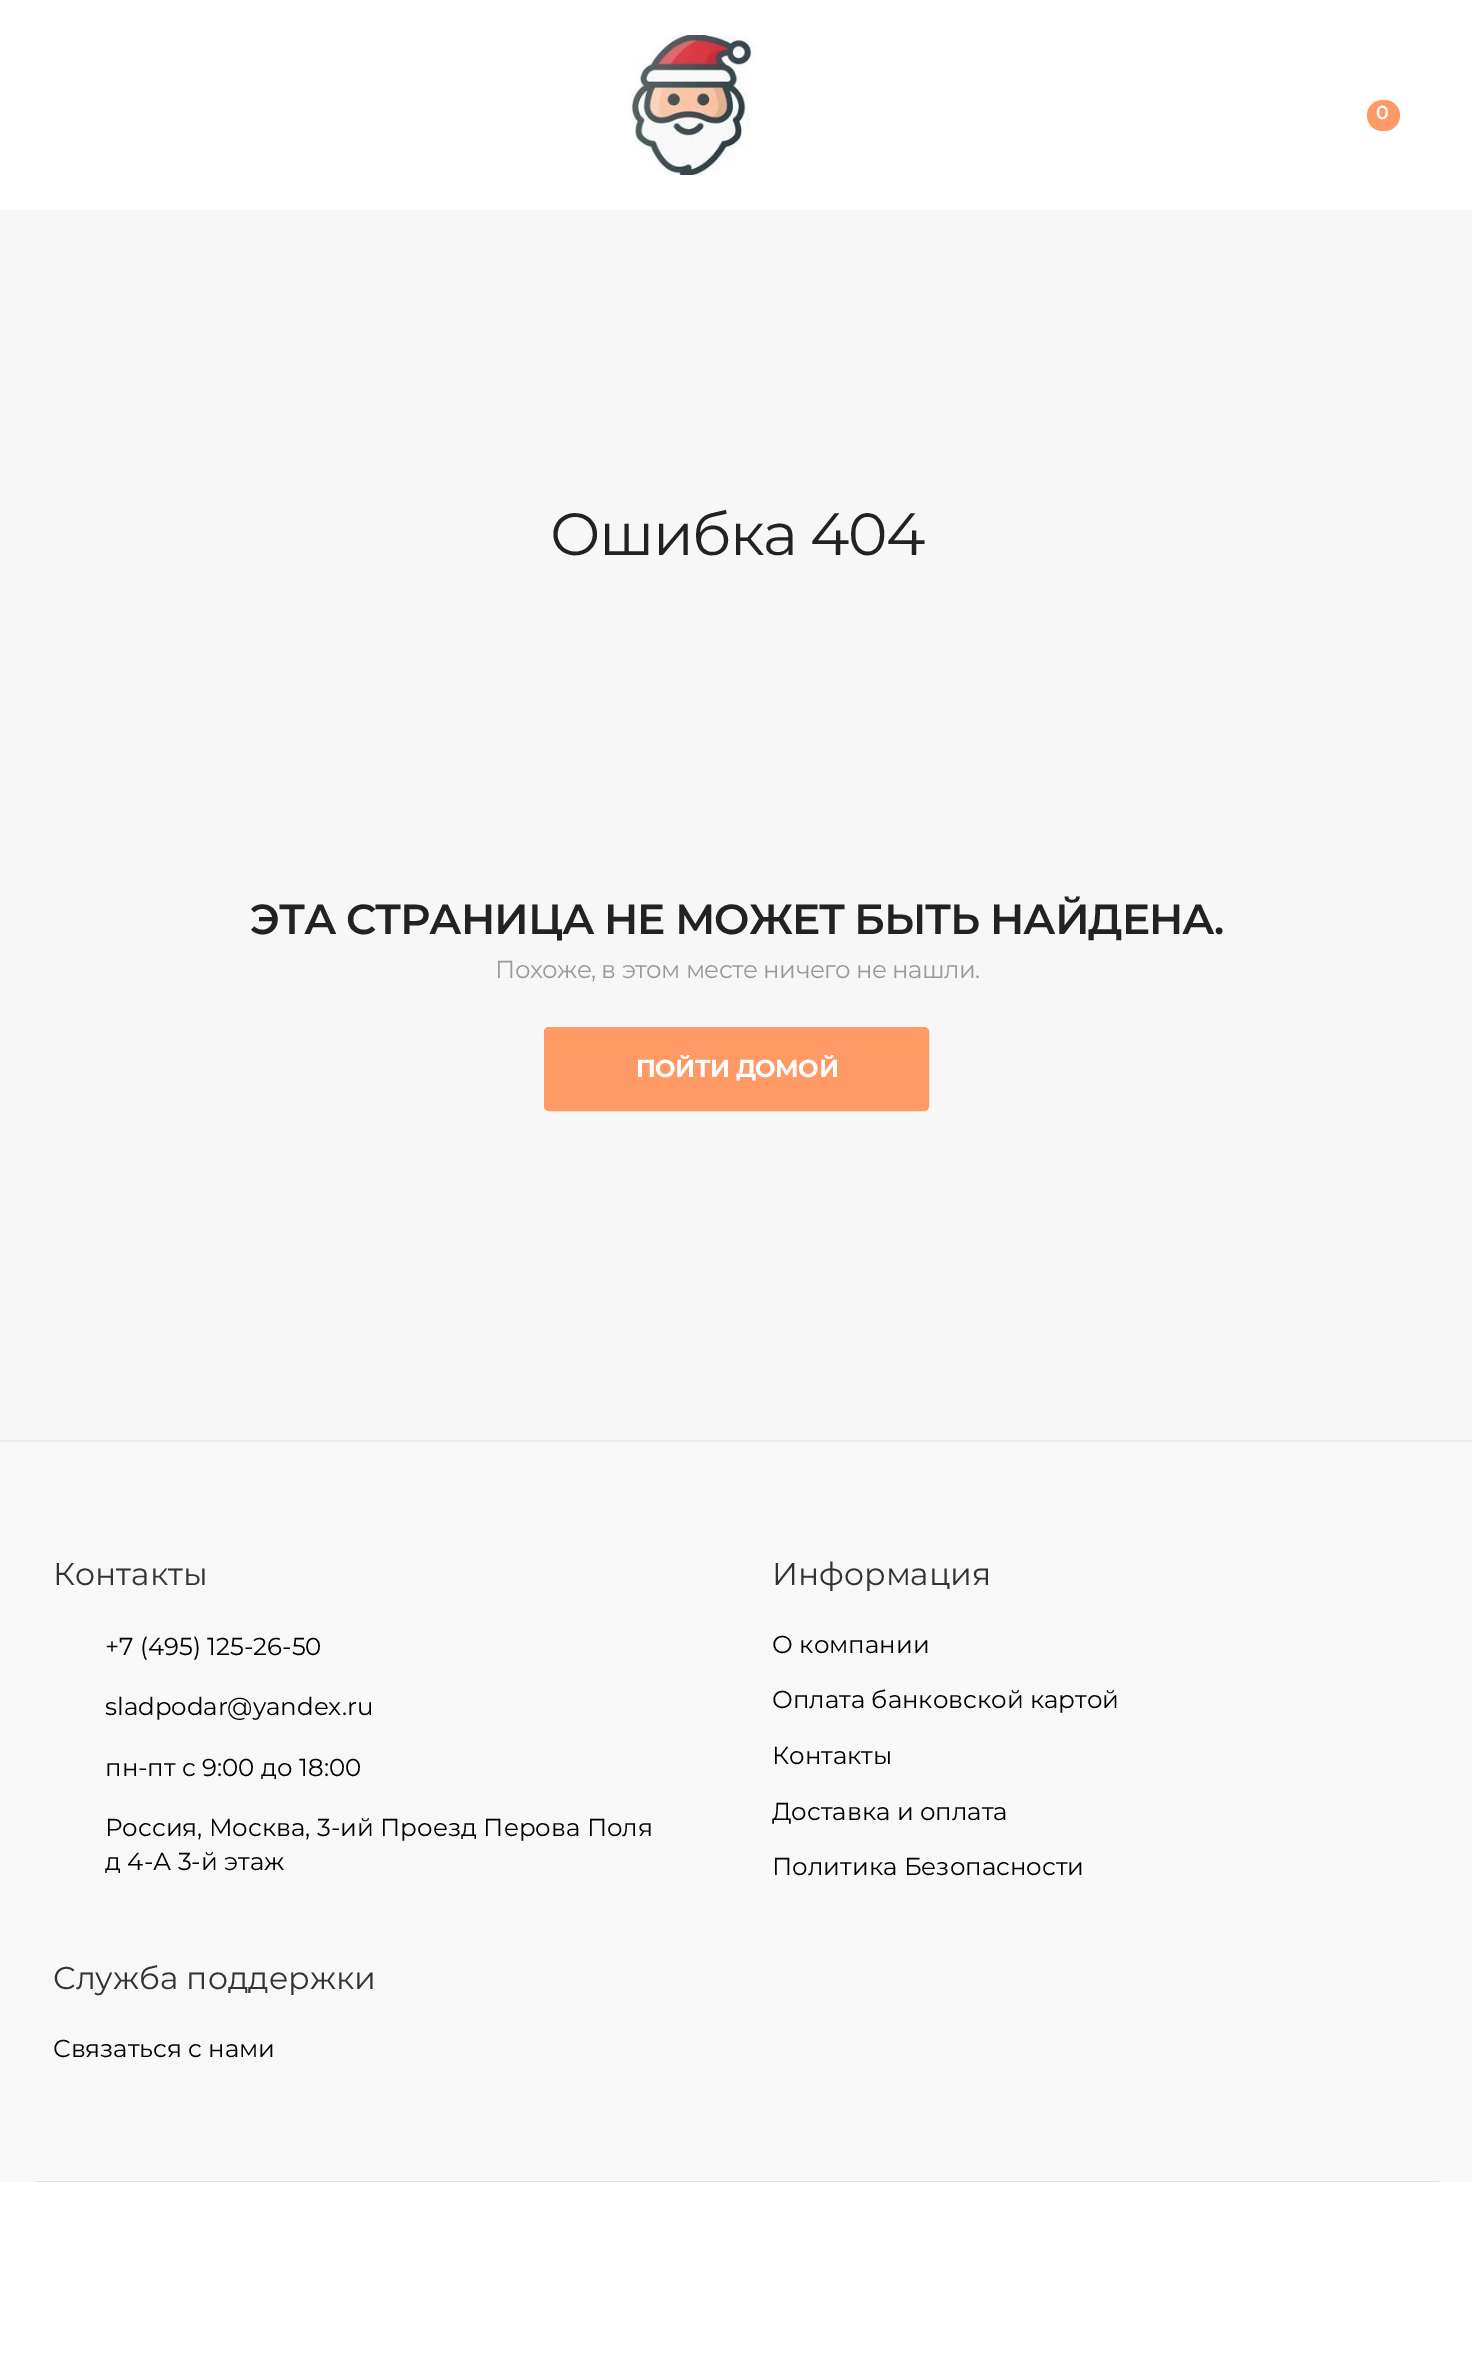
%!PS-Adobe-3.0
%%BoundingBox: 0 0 1472 2367
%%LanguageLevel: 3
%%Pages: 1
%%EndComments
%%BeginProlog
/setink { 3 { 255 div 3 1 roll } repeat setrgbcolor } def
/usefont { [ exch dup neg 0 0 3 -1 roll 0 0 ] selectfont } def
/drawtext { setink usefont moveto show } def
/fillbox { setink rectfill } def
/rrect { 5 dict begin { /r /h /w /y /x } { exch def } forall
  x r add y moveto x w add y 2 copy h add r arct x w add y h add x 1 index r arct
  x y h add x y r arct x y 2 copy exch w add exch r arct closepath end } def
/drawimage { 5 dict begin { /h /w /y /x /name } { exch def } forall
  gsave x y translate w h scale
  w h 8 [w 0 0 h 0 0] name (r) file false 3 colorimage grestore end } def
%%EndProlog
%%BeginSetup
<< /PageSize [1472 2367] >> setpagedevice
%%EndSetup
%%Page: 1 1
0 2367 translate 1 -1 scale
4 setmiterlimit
0 0 1472 2367 255 255 255 fillbox
(assets/img1.rgb) 628 35 128 140 drawimage
255 153 102 setink
1367 100 33 31 15.5 rrect fill
/Montserrat-SemiBold 19 usefont
255 255 255 setink
1376 119 moveto -1 0 (0) ashow
0 210 1472 1230 247 247 247 fillbox
/Montserrat-Regular 59.5 usefont
34 34 34 setink
550 555 moveto -1.5 0 (Ошибка 404) ashow
/Montserrat-SemiBold 42 usefont
250 934 moveto -1.05 0 (ЭТА СТРАНИЦА НЕ МОЖЕТ БЫТЬ НАЙДЕНА.) ashow
/Montserrat-Regular 24.5 usefont
153 153 153 setink
495 978 moveto -0.6 0 (Похоже, в этом месте ничего не нашли.) ashow
255 153 102 setink
546 1029 381 80 3 rrect gsave fill grestore
4 setlinewidth
stroke
/Montserrat-Bold 24.5 usefont
255 255 255 setink
636 1077 moveto -0.6 0 (ПОЙТИ ДОМОЙ) ashow
0 1440 1472 2 238 238 238 fillbox
0 1442 1472 740 248 248 248 fillbox
(Контакты) 53 1585 /Montserrat-Regular 31.5 51 51 51 drawtext
(+7 \(495\) 125-26-50) 105 1655 /Montserrat-Regular 24.5 0 0 0 drawtext
(sladpodar@yandex.ru) 105 1715 /Montserrat-Regular 24.5 0 0 0 drawtext
(пн-пт с 9:00 до 18:00) 105 1776 /Montserrat-Regular 24.5 0 0 0 drawtext
(Россия, Москва, 3-ий Проезд Перова Поля) 105 1836 /Montserrat-Regular 24.5 0 0 0 drawtext
(д 4-А 3-й этаж) 105 1870 /Montserrat-Regular 24.5 0 0 0 drawtext
(Информация) 772 1585 /Montserrat-Regular 31.5 51 51 51 drawtext
(О компании) 772 1653 /Montserrat-Regular 24.5 0 0 0 drawtext
(Оплата банковской картой) 772 1708 /Montserrat-Regular 24.5 0 0 0 drawtext
(Контакты) 772 1764 /Montserrat-Regular 24.5 0 0 0 drawtext
(Доставка и оплата) 772 1820 /Montserrat-Regular 24.5 0 0 0 drawtext
(Политика Безопасности) 772 1875 /Montserrat-Regular 24.5 0 0 0 drawtext
(Служба поддержки) 53 1989 /Montserrat-Regular 31.5 51 51 51 drawtext
(Связаться с нами) 53 2057 /Montserrat-Regular 24.5 0 0 0 drawtext
35 2181 1404 1 225 225 225 fillbox
showpage
%%EOF
